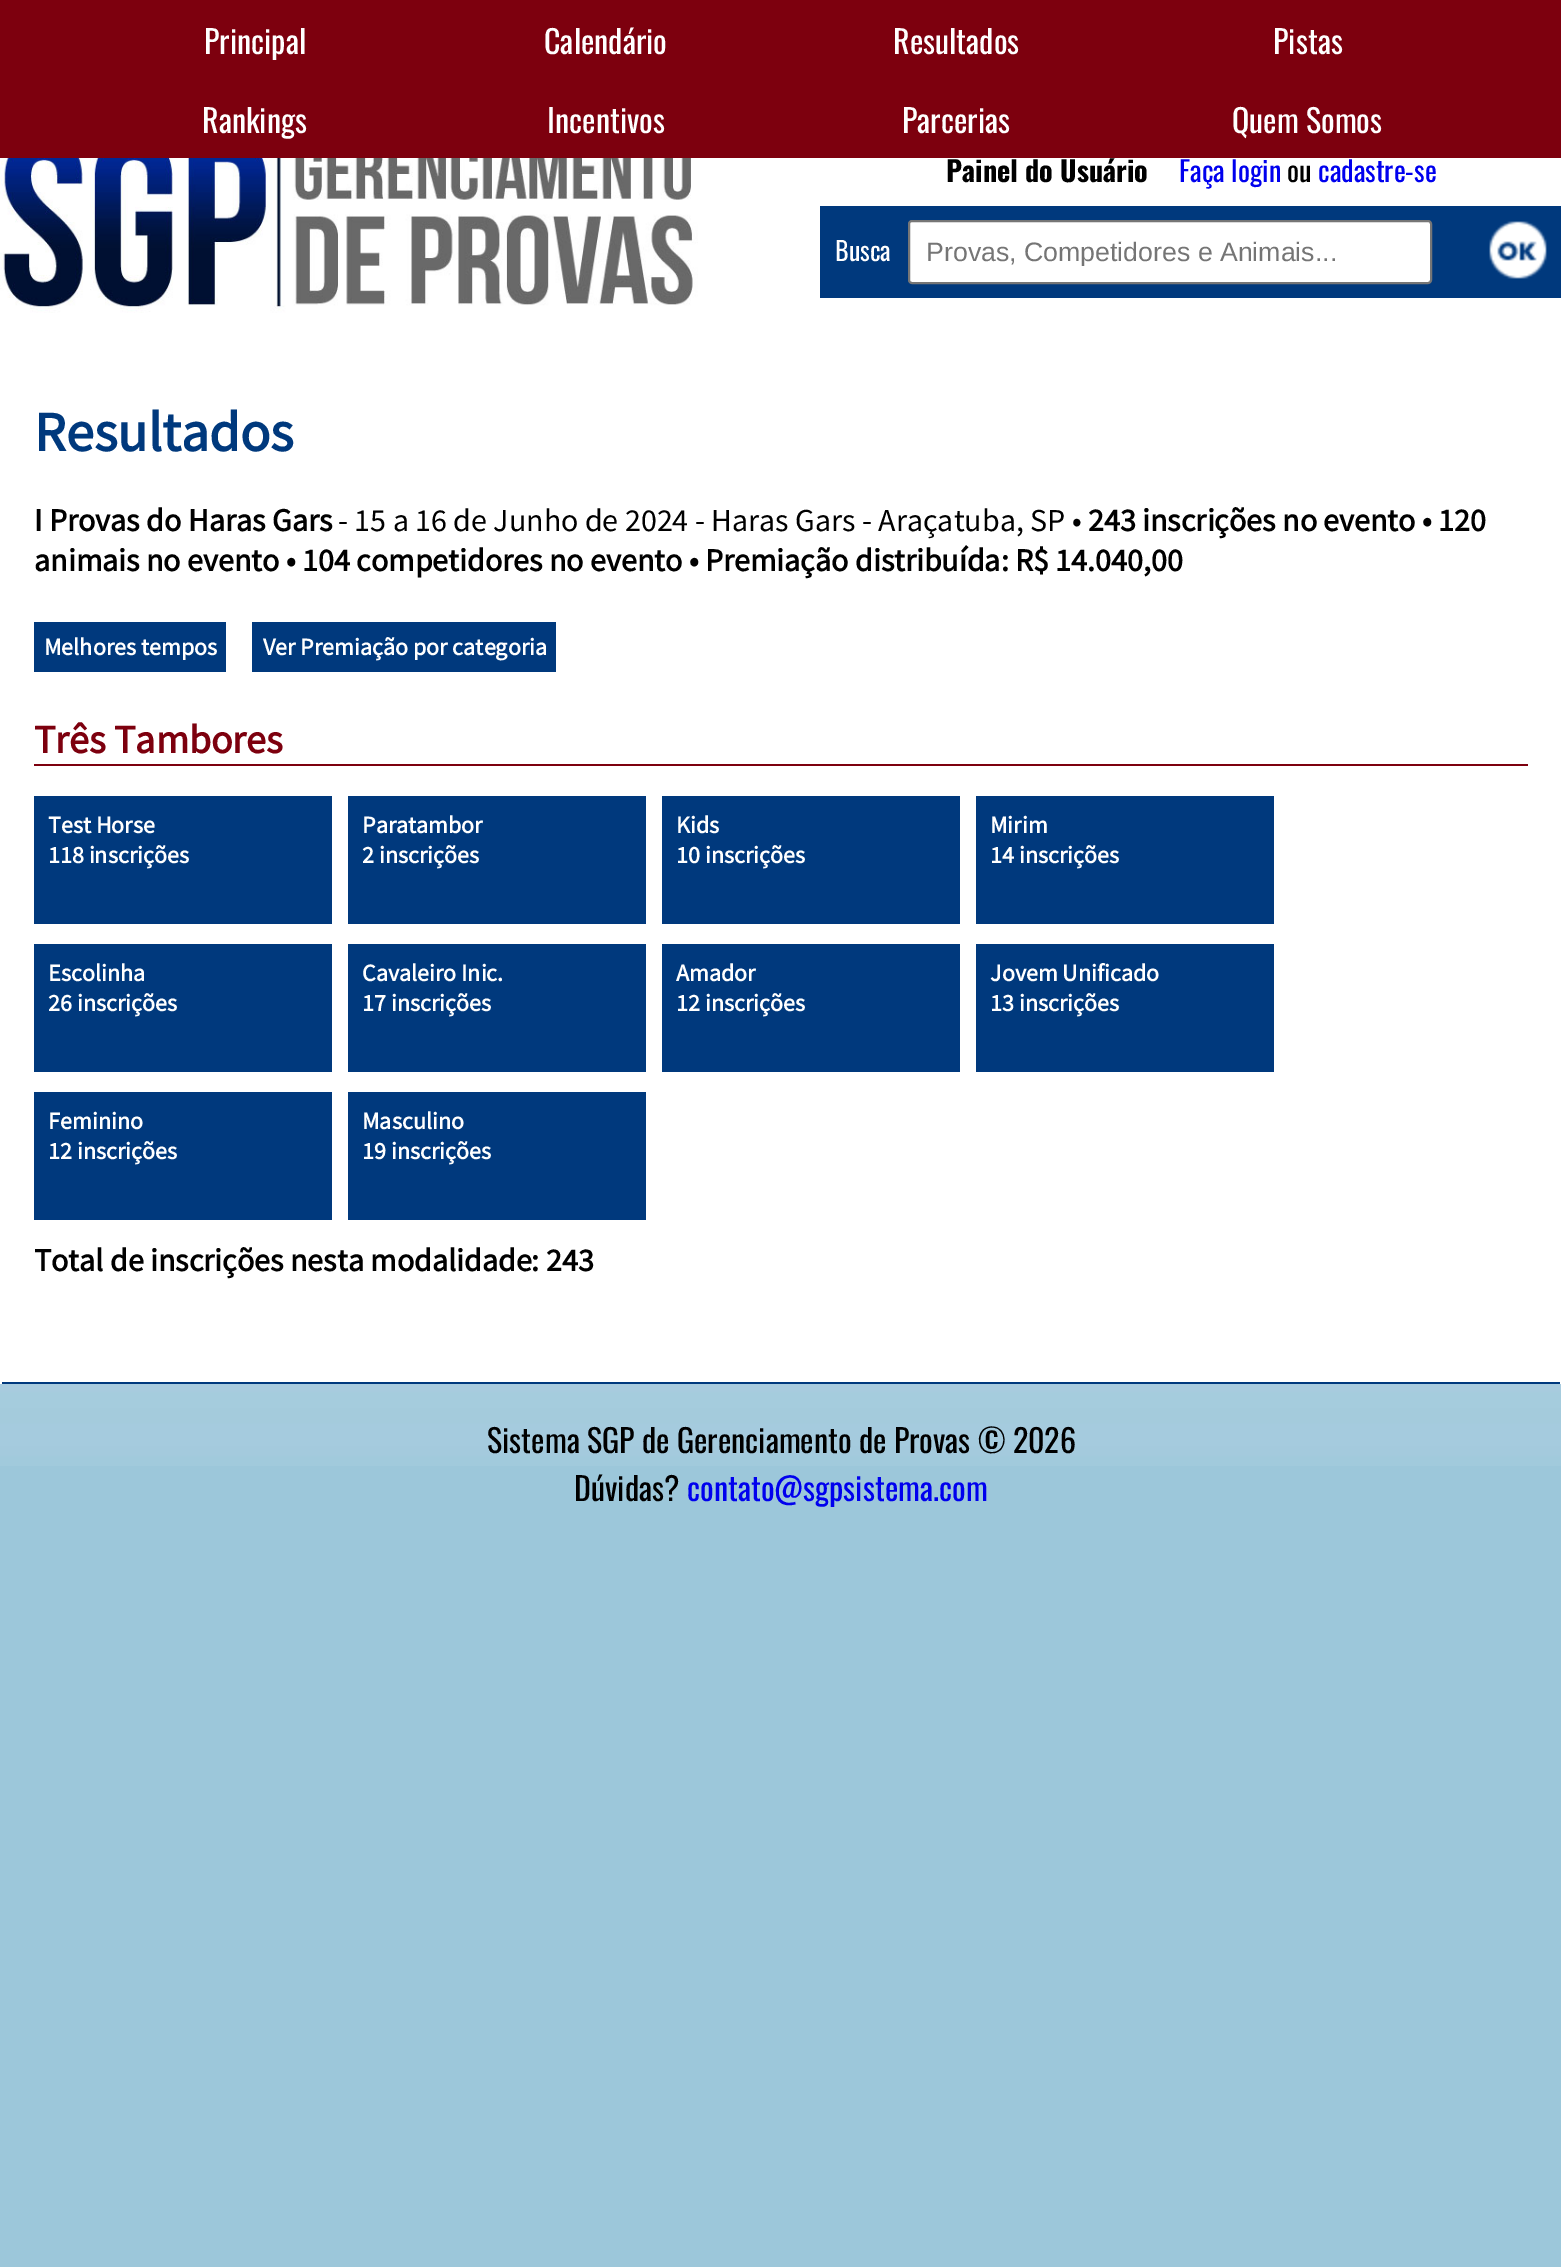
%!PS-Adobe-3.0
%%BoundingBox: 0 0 1561 2267
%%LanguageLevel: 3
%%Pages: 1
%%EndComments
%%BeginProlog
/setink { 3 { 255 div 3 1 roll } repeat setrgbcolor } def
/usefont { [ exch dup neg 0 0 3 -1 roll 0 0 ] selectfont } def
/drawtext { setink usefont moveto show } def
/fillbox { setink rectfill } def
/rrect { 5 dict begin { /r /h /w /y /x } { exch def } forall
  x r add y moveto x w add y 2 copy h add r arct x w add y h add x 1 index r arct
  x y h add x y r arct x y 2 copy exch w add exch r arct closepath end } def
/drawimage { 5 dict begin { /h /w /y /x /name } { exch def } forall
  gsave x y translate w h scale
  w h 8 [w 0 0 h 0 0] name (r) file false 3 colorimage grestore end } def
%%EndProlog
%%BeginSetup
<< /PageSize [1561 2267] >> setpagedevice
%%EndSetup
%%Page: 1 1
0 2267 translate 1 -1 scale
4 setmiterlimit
0 0 1561 2267 156 199 218 fillbox
(assets/img1.rgb) 0 1384 1561 82 drawimage
0 0 1561 158 125 0 14 fillbox
(Principal) 204 54 /Oswald-Regular 32 255 255 255 drawtext
(Calendário) 544 54 /Oswald-Regular 32 255 255 255 drawtext
(Resultados) 893 54 /Oswald-Regular 32 255 255 255 drawtext
(Pistas) 1273 54 /Oswald-Regular 32 255 255 255 drawtext
(Rankings) 202 133 /Oswald-Regular 32 255 255 255 drawtext
(Incentivos) 547 133 /Oswald-Regular 32 255 255 255 drawtext
(Parcerias) 902 133 /Oswald-Regular 32 255 255 255 drawtext
(Quem Somos) 1232 133 /Oswald-Regular 32 255 255 255 drawtext
0 158 1561 1226 255 255 255 fillbox
(assets/img2.rgb) 0 158 698 155 drawimage
(Painel do Usuário) 946 182 /Oswald-Bold 28.25 0 0 0 drawtext
(Faça login) 1179 182 /Oswald-Regular 28.25 0 0 238 drawtext
(ou) 1287 182 /Oswald-Regular 28.25 0 0 0 drawtext
(cadastre-se) 1318 182 /Oswald-Regular 28.25 0 0 238 drawtext
820 206 741 92 0 57 125 fillbox
(Busca) 835 261 /Oswald-Regular 26 255 255 255 drawtext
909 221 522 62 3 rrect gsave fill grestore
118 118 118 setink
2 setlinewidth
stroke
gsave
926 236 498 30 rectclip
(Provas, Competidores e Animais...) 926 261 /LiberationSans-Regular 26.7 117 117 117 drawtext
grestore
(assets/img3.rgb) 1489 221 58 58 drawimage
2 1382 1558 2 0 57 125 fillbox
(Resultados) 34 451 /SourceSansPro-Bold 56 0 57 125 drawtext
(I Provas do Haras Gars) 34 531 /SourceSansPro-Bold 32 0 0 0 drawtext
(- 15 a 16 de Junho de 2024 - Haras Gars - Araçatuba, SP •) 338 531 /SourceSansPro-Regular 32 0 0 0 drawtext
(243 inscrições no evento • 120) 1088 531 /SourceSansPro-Bold 32 0 0 0 drawtext
(animais no evento • 104 competidores no evento • Premiação distribuída: R$ 14.040,00) 34 571 /SourceSansPro-Bold 32 0 0 0 drawtext
34 622 192 50 0 57 125 fillbox
(Melhores tempos) 44 655 /SourceSansPro-Bold 24 255 255 255 drawtext
252 622 304 50 0 57 125 fillbox
(Ver Premiação por categoria) 263 655 /SourceSansPro-Bold 24 255 255 255 drawtext
34 764 1494 2 125 0 14 fillbox
(Três Tambores) 34 753 /SourceSansPro-Bold 40 125 0 14 drawtext
34 796 298 128 0 57 125 fillbox
(Test Horse) 48 833 /SourceSansPro-Bold 24 255 255 255 drawtext
(118 inscrições) 48 863 /SourceSansPro-Bold 24 255 255 255 drawtext
348 796 298 128 0 57 125 fillbox
(Paratambor) 362 833 /SourceSansPro-Bold 24 255 255 255 drawtext
(2 inscrições) 362 863 /SourceSansPro-Bold 24 255 255 255 drawtext
662 796 298 128 0 57 125 fillbox
(Kids) 676 833 /SourceSansPro-Bold 24 255 255 255 drawtext
(10 inscrições) 676 863 /SourceSansPro-Bold 24 255 255 255 drawtext
976 796 298 128 0 57 125 fillbox
(Mirim) 990 833 /SourceSansPro-Bold 24 255 255 255 drawtext
(14 inscrições) 990 863 /SourceSansPro-Bold 24 255 255 255 drawtext
34 944 298 128 0 57 125 fillbox
(Escolinha) 48 981 /SourceSansPro-Bold 24 255 255 255 drawtext
(26 inscrições) 48 1011 /SourceSansPro-Bold 24 255 255 255 drawtext
348 944 298 128 0 57 125 fillbox
(Cavaleiro Inic.) 362 981 /SourceSansPro-Bold 24 255 255 255 drawtext
(17 inscrições) 362 1011 /SourceSansPro-Bold 24 255 255 255 drawtext
662 944 298 128 0 57 125 fillbox
(Amador) 676 981 /SourceSansPro-Bold 24 255 255 255 drawtext
(12 inscrições) 676 1011 /SourceSansPro-Bold 24 255 255 255 drawtext
976 944 298 128 0 57 125 fillbox
(Jovem Unificado) 990 981 /SourceSansPro-Bold 24 255 255 255 drawtext
(13 inscrições) 990 1011 /SourceSansPro-Bold 24 255 255 255 drawtext
34 1092 298 128 0 57 125 fillbox
(Feminino) 48 1129 /SourceSansPro-Bold 24 255 255 255 drawtext
(12 inscrições) 48 1159 /SourceSansPro-Bold 24 255 255 255 drawtext
348 1092 298 128 0 57 125 fillbox
(Masculino) 362 1129 /SourceSansPro-Bold 24 255 255 255 drawtext
(19 inscrições) 362 1159 /SourceSansPro-Bold 24 255 255 255 drawtext
(Total de inscrições nesta modalidade: 243) 34 1271 /SourceSansPro-Bold 32 0 0 0 drawtext
(Sistema SGP de Gerenciamento de Provas © 2026) 487 1453 /Oswald-Regular 32 0 0 0 drawtext
(Dúvidas?) 574 1501 /Oswald-Regular 32 0 0 0 drawtext
(contato@sgpsistema.com) 687 1501 /Oswald-Regular 32 0 0 238 drawtext
showpage
%%EOF
